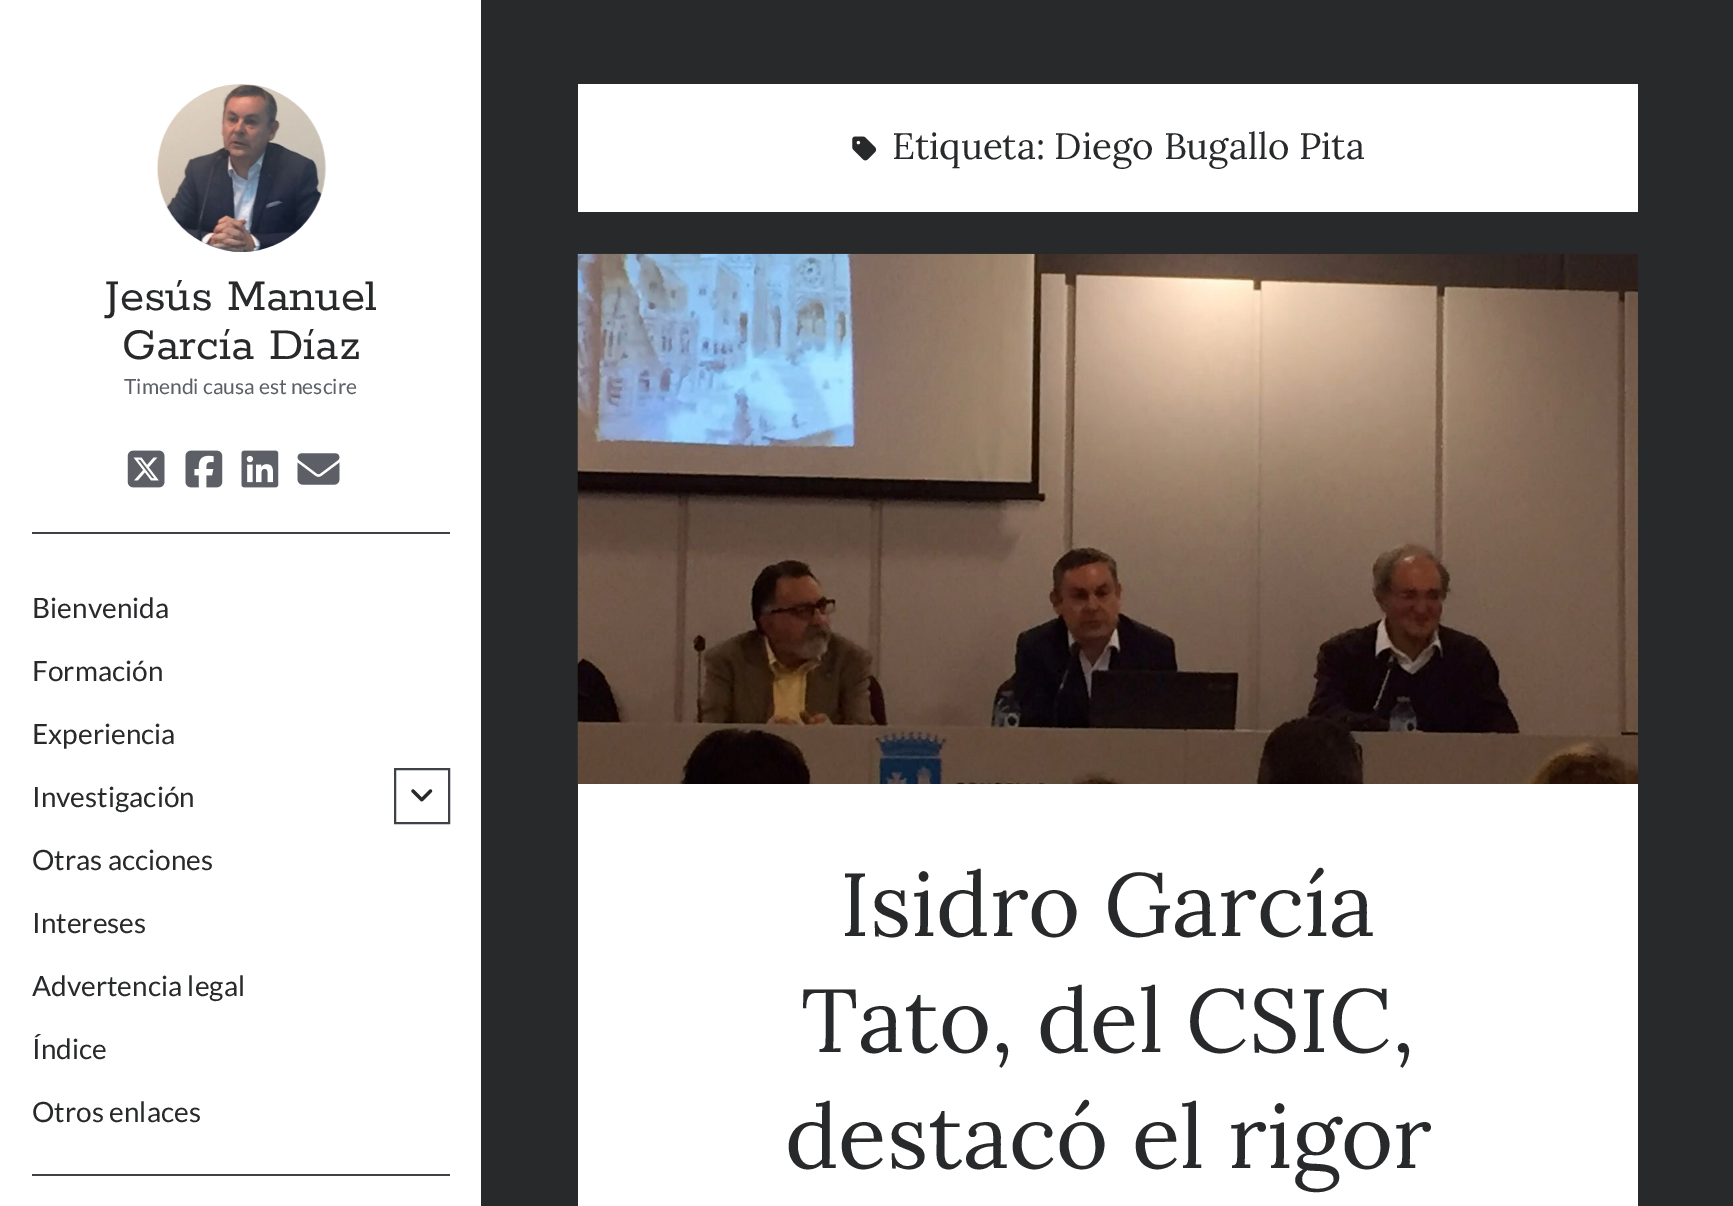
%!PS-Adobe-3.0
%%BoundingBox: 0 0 1733 1206
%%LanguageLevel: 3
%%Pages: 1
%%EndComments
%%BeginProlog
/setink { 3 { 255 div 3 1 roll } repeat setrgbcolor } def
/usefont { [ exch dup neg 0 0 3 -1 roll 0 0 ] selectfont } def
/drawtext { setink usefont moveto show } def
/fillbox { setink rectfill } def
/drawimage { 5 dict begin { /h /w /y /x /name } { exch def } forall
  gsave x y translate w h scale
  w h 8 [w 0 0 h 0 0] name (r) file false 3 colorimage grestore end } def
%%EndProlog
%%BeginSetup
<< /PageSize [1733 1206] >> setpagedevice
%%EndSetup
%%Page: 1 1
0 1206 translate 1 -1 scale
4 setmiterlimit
0 0 1733 1206 255 255 255 fillbox
(assets/img1.rgb) 156 84 170 168 drawimage
(Jesús Manuel) 105 310 /Rokkitt-Regular 49 39 41 43 drawtext
(García Díaz) 122 359 /Rokkitt-Regular 49 39 41 43 drawtext
(Timendi causa est nescire) 124 394 /Lato-Regular 21 92 96 102 drawtext
(assets/img2.rgb) 127 450 38 38 drawimage
(assets/img3.rgb) 185 450 38 38 drawimage
(assets/img4.rgb) 241 450 38 38 drawimage
(assets/img5.rgb) 297 453 43 32 drawimage
32 532 418 2 62 65 69 fillbox
(Bienvenida) 32 618 /Lato-Regular 28 39 41 43 drawtext
(Formación) 32 681 /Lato-Regular 28 39 41 43 drawtext
(Experiencia) 32 744 /Lato-Regular 28 39 41 43 drawtext
(Investigación) 32 807 /Lato-Regular 28 39 41 43 drawtext
62 65 69 setink
2 setlinewidth
395 769 54 54 rectstroke
(assets/img6.rgb) 411 789 22 13 drawimage
(Otras acciones) 32 870 /Lato-Regular 28 39 41 43 drawtext
(Intereses) 32 933 /Lato-Regular 28 39 41 43 drawtext
(Advertencia legal) 32 996 /Lato-Regular 28 39 41 43 drawtext
(Índice) 32 1059 /Lato-Regular 28 39 41 43 drawtext
(Otros enlaces) 32 1122 /Lato-Regular 28 39 41 43 drawtext
32 1174 418 2 62 65 69 fillbox
481 0 1252 1206 39 41 43 fillbox
578 84 1060 128 255 255 255 fillbox
(assets/img7.rgb) 852 136 25 25 drawimage
(Etiqueta: Diego Bugallo Pita) 892 159 /Lora-Regular 36.75 39 41 43 drawtext
(assets/img8.rgb) 577 253 1061 531 drawimage
578 784 1060 422 255 255 255 fillbox
(Isidro García) 840 936 /Lora-Regular 89.25 39 41 43 drawtext
(Tato, del CSIC,) 801 1052 /Lora-Regular 89.25 39 41 43 drawtext
(destacó el rigor) 785 1168 /Lora-Regular 89.25 39 41 43 drawtext
showpage
%%EOF
